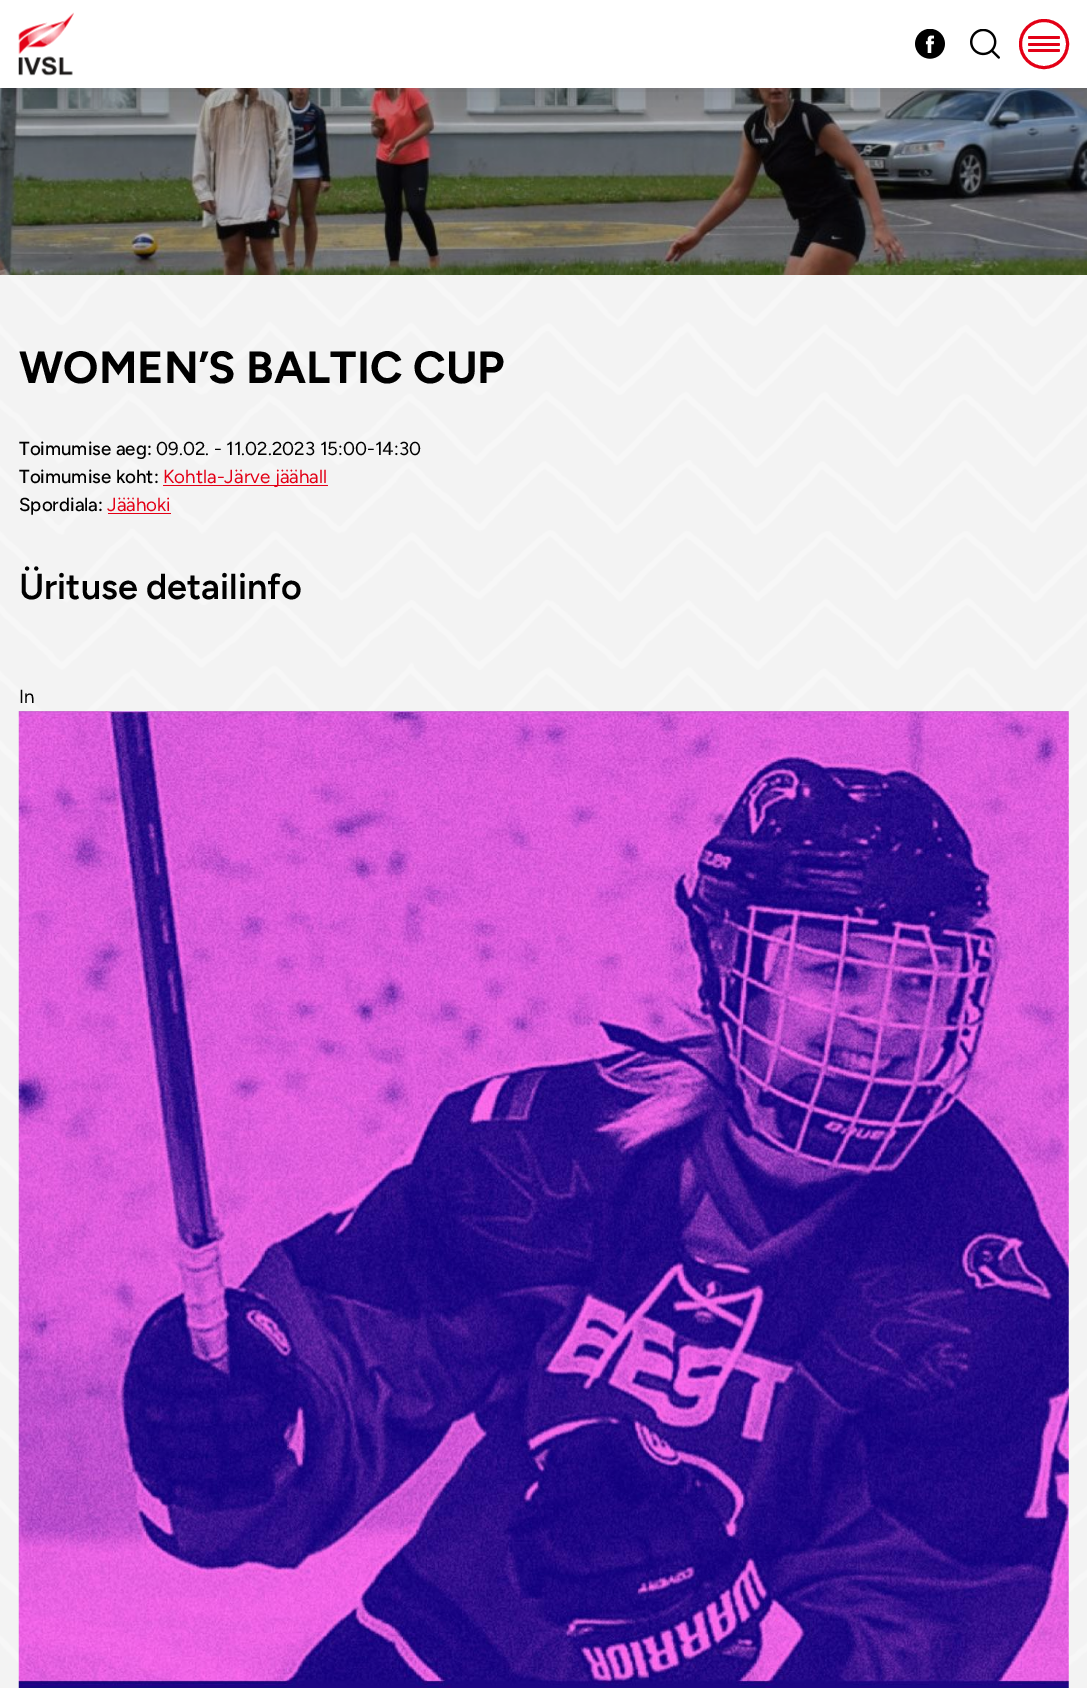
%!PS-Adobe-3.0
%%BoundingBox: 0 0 1087 1688
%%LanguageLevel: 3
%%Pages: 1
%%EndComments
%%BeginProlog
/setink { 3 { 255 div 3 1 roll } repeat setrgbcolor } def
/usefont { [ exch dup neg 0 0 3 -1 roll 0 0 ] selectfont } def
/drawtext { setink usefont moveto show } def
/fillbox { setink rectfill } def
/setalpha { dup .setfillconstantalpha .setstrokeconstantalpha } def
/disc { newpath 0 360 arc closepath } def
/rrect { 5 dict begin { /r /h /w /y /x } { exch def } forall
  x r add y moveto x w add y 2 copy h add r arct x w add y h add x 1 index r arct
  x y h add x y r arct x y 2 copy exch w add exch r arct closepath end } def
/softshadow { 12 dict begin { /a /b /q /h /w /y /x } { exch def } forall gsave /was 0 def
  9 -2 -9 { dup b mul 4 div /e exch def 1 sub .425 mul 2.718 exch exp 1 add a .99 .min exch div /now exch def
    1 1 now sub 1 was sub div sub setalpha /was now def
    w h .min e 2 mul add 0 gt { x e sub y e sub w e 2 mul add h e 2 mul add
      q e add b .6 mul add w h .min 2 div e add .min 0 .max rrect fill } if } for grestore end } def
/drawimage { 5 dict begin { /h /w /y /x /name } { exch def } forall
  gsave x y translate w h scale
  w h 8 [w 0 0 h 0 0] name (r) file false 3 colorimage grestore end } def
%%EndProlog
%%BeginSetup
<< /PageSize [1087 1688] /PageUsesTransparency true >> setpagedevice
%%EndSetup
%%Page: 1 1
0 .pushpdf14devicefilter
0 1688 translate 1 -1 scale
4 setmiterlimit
0 0 1087 1688 243 243 243 fillbox
(assets/img5.rgb) 0 88 1087 187 drawimage
0 0 0 setink
0 0 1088 88 0 15.5 0.15 softshadow
0 0 1087 88 255 255 255 fillbox
(assets/img1.rgb) 18 12 56 64 drawimage
(assets/img2.rgb) 915 29 30 30 drawimage
(assets/img3.rgb) 970 29 30 30 drawimage
227 0 22 setink
3 setlinewidth
1044 44 23.5 disc stroke
1028 36 32 3 1.5 rrect fill
1028 43 32 3 1.5 rrect fill
1028 49 32 3 1.5 rrect fill
(assets/img4.rgb) 0 275 1087 1394 drawimage
(WOMEN’S BALTIC CUP) 19 383 /Figtree-Bold 45 0 0 0 drawtext
(Toimumise aeg:) 19 455 /Figtree-Medium 18.75 0 0 0 drawtext
(09.02. - 11.02.2023 15:00-14:30) 156 455 /Figtree-Regular 18.75 0 0 0 drawtext
(Toimumise koht:) 19 483 /Figtree-Medium 18.75 0 0 0 drawtext
163 485 165 1 227 0 22 fillbox
(Kohtla-Järve jäähall) 163 483 /Figtree-Regular 18.75 227 0 22 drawtext
(Spordiala:) 19 511 /Figtree-Medium 18.75 0 0 0 drawtext
(Jäähoki) 107 511 /Figtree-Regular 18.75 227 0 22 drawtext
108 513 63 1 227 0 22 fillbox
(Ürituse detailinfo) 19 599 /Figtree-SemiBold 36 0 0 0 drawtext
(In) 19 703 /Figtree-Regular 18.75 0 0 0 drawtext
(assets/img6.rgb) 18 711 1051 977 drawimage
.poppdf14devicefilter showpage
%%EOF
